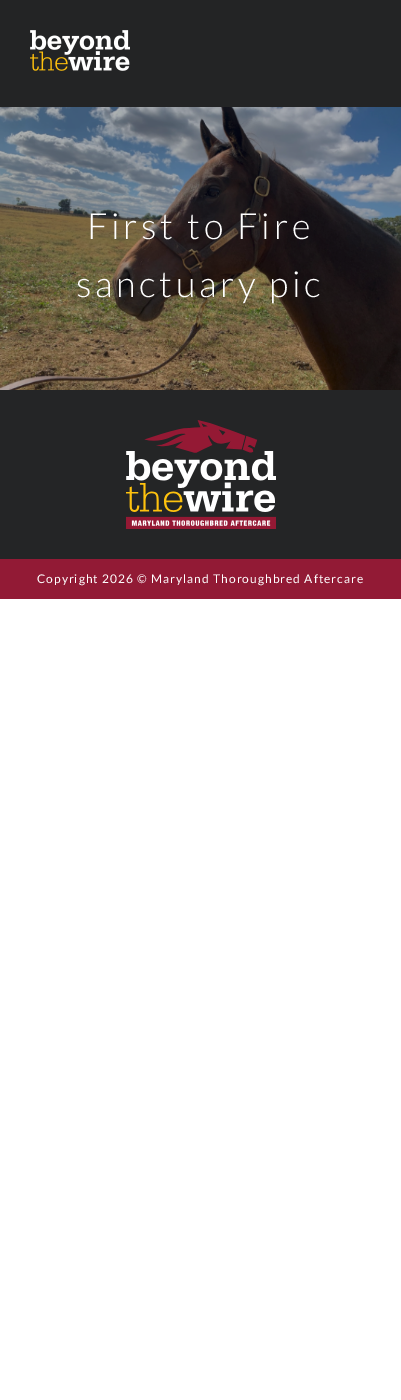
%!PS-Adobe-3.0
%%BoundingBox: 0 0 401 1400
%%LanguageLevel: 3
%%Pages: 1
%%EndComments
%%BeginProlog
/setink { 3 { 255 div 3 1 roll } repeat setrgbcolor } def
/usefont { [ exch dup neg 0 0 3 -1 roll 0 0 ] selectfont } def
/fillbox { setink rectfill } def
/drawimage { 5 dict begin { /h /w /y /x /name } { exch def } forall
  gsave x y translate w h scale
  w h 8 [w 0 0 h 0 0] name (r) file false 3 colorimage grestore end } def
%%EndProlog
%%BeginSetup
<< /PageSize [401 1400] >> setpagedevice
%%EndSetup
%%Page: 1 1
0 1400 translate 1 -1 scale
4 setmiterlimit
0 0 401 1400 255 255 255 fillbox
0 0 401 107 35 36 37 fillbox
(assets/img1.rgb) 30 30 100 41 drawimage
(assets/img2.rgb) 0 107 401 283 drawimage
/Lato-Light 36 usefont
255 255 255 setink
87 239 moveto 3.6 0 (First to Fire) ashow
76 297 moveto 3.6 0 (sanctuary pic) ashow
0 390 401 169 36 37 38 fillbox
(assets/img3.rgb) 126 420 150 109 drawimage
0 559 401 40 146 26 53 fillbox
/Lato-Regular 12 usefont
255 255 255 setink
37 583 moveto 1 0 (Copyright 2026 © Maryland Thoroughbred Aftercare) ashow
showpage
%%EOF
